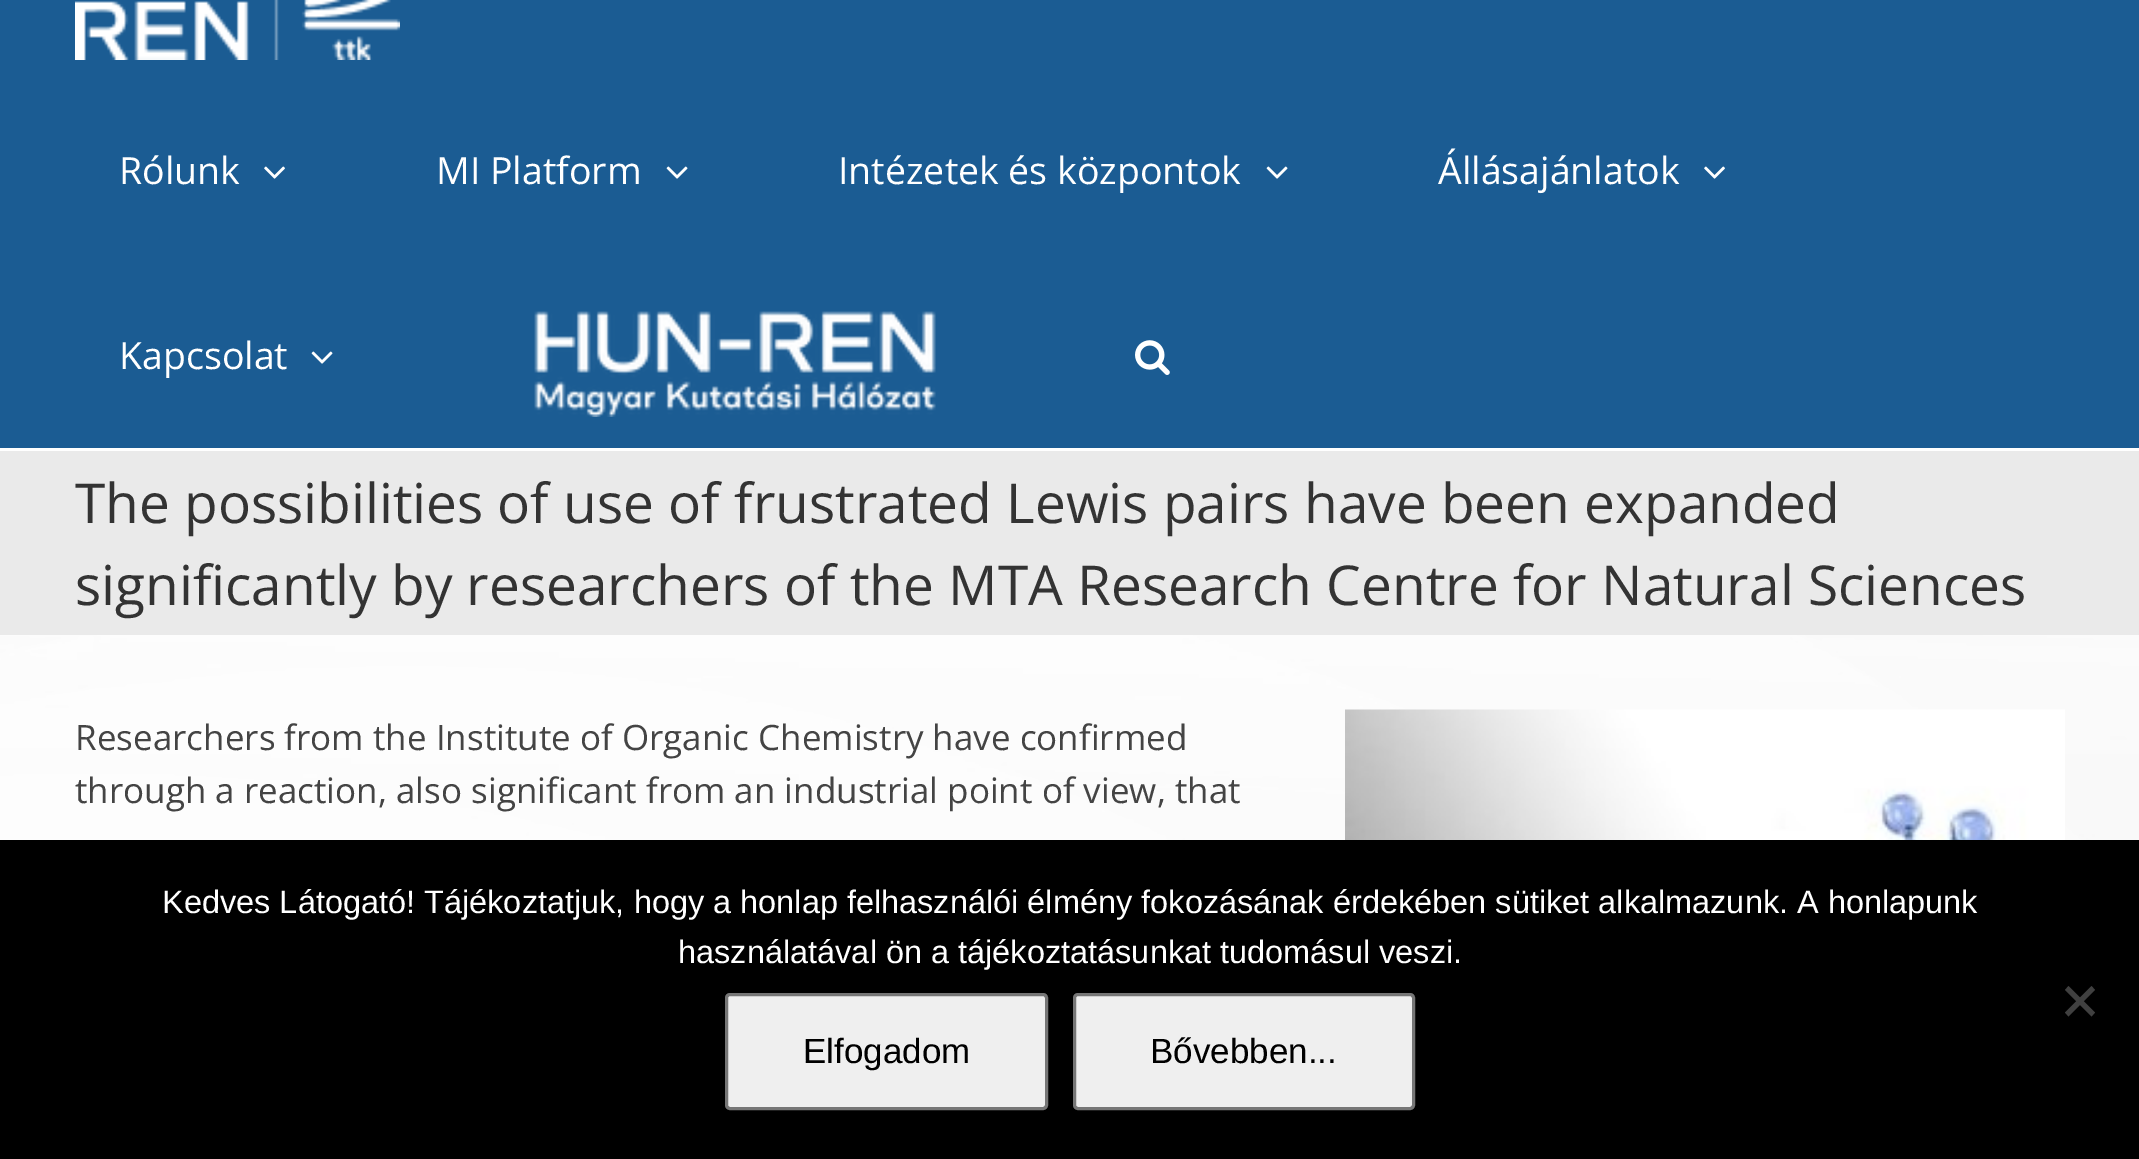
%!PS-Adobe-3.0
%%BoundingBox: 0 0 2139 1159
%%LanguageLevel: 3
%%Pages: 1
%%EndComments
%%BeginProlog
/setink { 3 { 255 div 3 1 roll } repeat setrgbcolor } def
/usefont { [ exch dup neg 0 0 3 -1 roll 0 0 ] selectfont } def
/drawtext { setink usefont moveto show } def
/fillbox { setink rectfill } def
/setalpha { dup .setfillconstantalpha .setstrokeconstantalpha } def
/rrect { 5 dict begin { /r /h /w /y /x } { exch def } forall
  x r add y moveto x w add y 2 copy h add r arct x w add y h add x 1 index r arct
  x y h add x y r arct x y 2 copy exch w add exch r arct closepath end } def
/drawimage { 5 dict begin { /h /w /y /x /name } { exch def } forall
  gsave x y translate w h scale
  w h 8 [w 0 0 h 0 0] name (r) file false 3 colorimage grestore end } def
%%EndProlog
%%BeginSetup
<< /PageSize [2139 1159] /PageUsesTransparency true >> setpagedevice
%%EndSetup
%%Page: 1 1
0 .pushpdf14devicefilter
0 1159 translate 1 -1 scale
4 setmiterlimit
0 0 2139 1159 255 255 255 fillbox
(assets/img1.rgb) 0 635 2139 205 drawimage
0 0 2139 448 27 92 147 fillbox
(assets/img2.rgb) 75 0 325 60 drawimage
(Rólunk) 119 184 /OpenSans-Regular 37.5 255 255 255 drawtext
(assets/img3.rgb) 264 166 21 13 drawimage
(MI Platform) 436 184 /OpenSans-Regular 37.5 255 255 255 drawtext
(assets/img4.rgb) 666 166 22 13 drawimage
(Intézetek és központok) 838 184 /OpenSans-Regular 37.5 255 255 255 drawtext
(assets/img4.rgb) 1266 166 22 13 drawimage
(Állásajánlatok) 1438 184 /OpenSans-Regular 37.5 255 255 255 drawtext
(assets/img3.rgb) 1704 166 21 13 drawimage
(Kapcsolat) 119 369 /OpenSans-Regular 37.5 255 255 255 drawtext
(assets/img4.rgb) 311 351 22 13 drawimage
(assets/img5.rgb) 534 311 402 106 drawimage
(assets/img6.rgb) 1135 340 35 35 drawimage
0 451 2139 184 234 234 234 fillbox
(The possibilities of use of frustrated Lewis pairs have been expanded) 75 523 /OpenSans-Regular 55 51 51 51 drawtext
(significantly by researchers of the MTA Research Centre for Natural Sciences) 75 605 /OpenSans-Regular 55 51 51 51 drawtext
0.8 setalpha
0 635 2139 205 255 255 255 fillbox
1 setalpha
(Researchers from the Institute of Organic Chemistry have confirmed) 75 750 /OpenSans-Regular 35 68 68 68 drawtext
(through a reaction, also significant from an industrial point of view, that) 75 803 /OpenSans-Regular 35 68 68 68 drawtext
(assets/img7.rgb) 1345 709 720 131 drawimage
0 840 2139 319 0 0 0 fillbox
(Kedves Látogató! Tájékoztatjuk, hogy a honlap felhasználói élmény fokozásának érdekében sütiket alkalmazunk. A honlapunk) 162 913 /LiberationSans-Regular 32.5 255 255 255 drawtext
(használatával ön a tájékoztatásunkat tudomásul veszi.) 678 963 /LiberationSans-Regular 32.5 255 255 255 drawtext
64 64 64 setink
2091.5 986 moveto 2095 990 lineto 2068.5 1016.5 lineto 2065 1012.5 lineto closepath fill
2065 990 moveto 2068.5 986 lineto 2095 1012.5 lineto 2091.5 1016.5 lineto closepath fill
239 239 239 setink
726.5 994.5 320 114 3.5 rrect gsave fill grestore
118 118 118 setink
3 setlinewidth
stroke
(Elfogadom) 803 1063 /LiberationSans-Regular 35 0 0 0 drawtext
239 239 239 setink
1074.5 994.5 339 114 3.5 rrect gsave fill grestore
118 118 118 setink
stroke
(Bővebben...) 1150 1063 /LiberationSans-Regular 35 0 0 0 drawtext
.poppdf14devicefilter showpage
%%EOF
